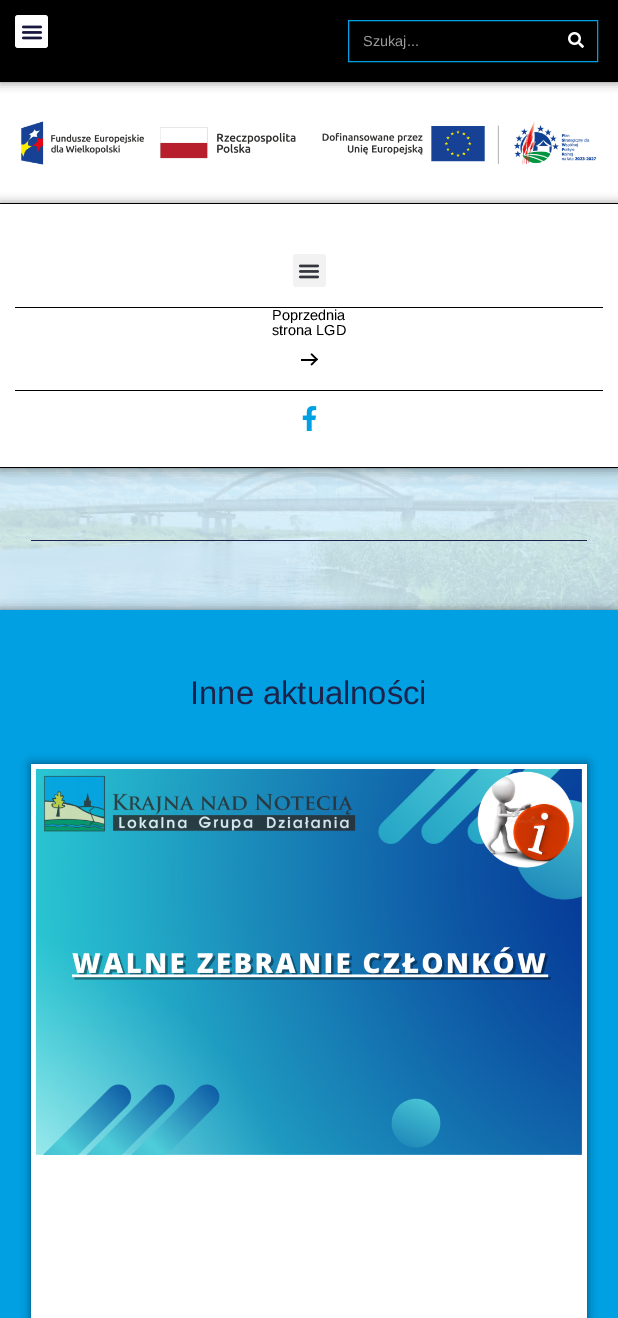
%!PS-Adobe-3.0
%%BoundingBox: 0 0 618 1318
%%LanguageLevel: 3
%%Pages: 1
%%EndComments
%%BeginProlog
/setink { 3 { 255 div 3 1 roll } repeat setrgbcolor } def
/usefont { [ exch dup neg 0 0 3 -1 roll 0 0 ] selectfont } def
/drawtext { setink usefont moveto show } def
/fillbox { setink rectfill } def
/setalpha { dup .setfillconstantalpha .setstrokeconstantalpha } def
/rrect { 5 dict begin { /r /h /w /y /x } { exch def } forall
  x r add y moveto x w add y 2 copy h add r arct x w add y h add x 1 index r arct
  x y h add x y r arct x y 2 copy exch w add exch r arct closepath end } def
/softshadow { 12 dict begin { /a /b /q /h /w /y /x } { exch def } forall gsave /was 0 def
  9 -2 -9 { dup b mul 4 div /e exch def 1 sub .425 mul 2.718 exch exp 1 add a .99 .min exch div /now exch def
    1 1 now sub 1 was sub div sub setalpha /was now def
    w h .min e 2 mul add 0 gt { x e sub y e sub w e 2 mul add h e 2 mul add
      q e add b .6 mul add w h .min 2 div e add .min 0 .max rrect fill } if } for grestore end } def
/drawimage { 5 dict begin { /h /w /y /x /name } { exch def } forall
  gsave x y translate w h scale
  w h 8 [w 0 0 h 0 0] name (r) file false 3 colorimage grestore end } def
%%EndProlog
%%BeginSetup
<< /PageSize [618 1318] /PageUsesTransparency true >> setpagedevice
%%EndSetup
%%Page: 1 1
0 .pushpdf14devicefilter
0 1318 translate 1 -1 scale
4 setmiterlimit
0 0 618 1318 255 255 255 fillbox
(assets/img7.rgb) 0 468 618 142 drawimage
gsave
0 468 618 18 rectclip
0 0 0 setink
0 5 618 468 0 15 0.1 softshadow
grestore
0 0 0 setink
0 0 618 82 0 5 0.5 softshadow
0 0 618 82 0 0 0 fillbox
255 255 255 setink
15 15 33 33 3 rrect fill
(assets/img1.rgb) 21 25 22 15 drawimage
0 160 227 setink
348.5 20.5 249 41 rectstroke
(Szukaj...) 363 46 /LiberationSans-Regular 14.5 153 153 153 drawtext
(assets/img2.rgb) 568 32 16 16 drawimage
0 203 618 1 0 0 0 fillbox
(assets/img3.rgb) 21 121 576 44 drawimage
gsave
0 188 moveto 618 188 lineto 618 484 lineto 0 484 lineto closepath 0 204 moveto 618 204 lineto 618 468 lineto 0 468 lineto closepath eoclip newpath
0 204 618 264 0 5 0.5 softshadow
grestore
0 467 618 1 0 0 0 fillbox
242 242 242 setink
293 254 33 33 3 rrect fill
(assets/img4.rgb) 298 264 22 15 drawimage
15 307 588 1 0 0 0 fillbox
(Poprzednia) 272 320 /LiberationSans-Regular 14.5 0 0 0 drawtext
(strona LGD) 272 335 /LiberationSans-Regular 14.5 0 0 0 drawtext
(assets/img5.rgb) 301 353 17 13 drawimage
15 390 588 1 0 0 0 fillbox
(assets/img6.rgb) 302 406 15 25 drawimage
31 540 556 1 28 36 75 fillbox
0 0 0 setink
0 610 618 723 0 5 0.5 softshadow
0 610 618 708 0 160 227 fillbox
(Inne aktualności) 190 704 /LiberationSans-Regular 32.75 28 36 75 drawtext
0 0 0 setink
31 764 556 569 0 5 0.5 softshadow
31 764 556 554 255 255 255 fillbox
(assets/img8.rgb) 36 769 546 386 drawimage
.poppdf14devicefilter showpage
%%EOF
